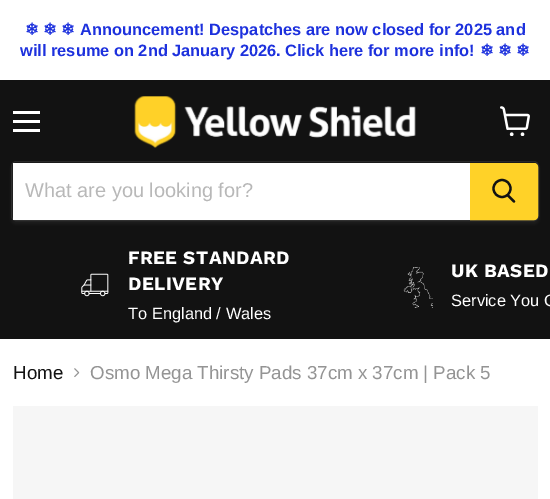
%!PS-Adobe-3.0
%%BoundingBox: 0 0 550 499
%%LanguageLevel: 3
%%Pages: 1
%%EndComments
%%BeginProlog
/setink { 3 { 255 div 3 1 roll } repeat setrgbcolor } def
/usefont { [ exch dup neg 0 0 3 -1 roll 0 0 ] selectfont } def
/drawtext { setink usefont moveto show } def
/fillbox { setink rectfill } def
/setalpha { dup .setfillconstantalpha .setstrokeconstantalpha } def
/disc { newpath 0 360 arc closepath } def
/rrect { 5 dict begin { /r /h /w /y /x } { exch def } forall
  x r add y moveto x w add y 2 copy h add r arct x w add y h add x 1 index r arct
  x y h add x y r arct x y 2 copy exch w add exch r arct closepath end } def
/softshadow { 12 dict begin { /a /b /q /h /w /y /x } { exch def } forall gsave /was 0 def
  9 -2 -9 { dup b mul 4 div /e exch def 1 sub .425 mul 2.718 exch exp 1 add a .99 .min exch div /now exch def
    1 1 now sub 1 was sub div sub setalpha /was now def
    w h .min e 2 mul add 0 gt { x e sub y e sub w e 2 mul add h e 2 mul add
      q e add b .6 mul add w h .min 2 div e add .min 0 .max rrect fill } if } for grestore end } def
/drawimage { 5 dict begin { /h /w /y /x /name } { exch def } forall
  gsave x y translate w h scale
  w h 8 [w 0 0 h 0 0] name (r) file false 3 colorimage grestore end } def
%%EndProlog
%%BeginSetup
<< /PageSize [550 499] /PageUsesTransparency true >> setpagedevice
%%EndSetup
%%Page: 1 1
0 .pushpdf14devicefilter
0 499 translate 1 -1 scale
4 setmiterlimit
0 0 550 499 255 255 255 fillbox
(❄) 25 35 /DejaVuSans-Bold 16.4 29 49 221 drawtext
(❄) 43 35 /DejaVuSans-Bold 16.4 29 49 221 drawtext
(❄) 61 35 /DejaVuSans-Bold 16.4 29 49 221 drawtext
(Announcement! Despatches are now closed for 2025 and) 80 35 /LiberationSans-Bold 16.4 29 49 221 drawtext
(will resume on 2nd January 2026.) 20 56 /LiberationSans-Bold 16.4 29 49 221 drawtext
(Click here for more info!) 285 56 /LiberationSans-Bold 16.4 29 49 221 drawtext
(❄) 480 56 /DejaVuSans-Bold 16.4 29 49 221 drawtext
(❄) 498 56 /DejaVuSans-Bold 16.4 29 49 221 drawtext
(❄) 516 56 /DejaVuSans-Bold 16.4 29 49 221 drawtext
0 80 550 259 18 18 18 fillbox
13 111 27 3 255 255 255 fillbox
13 120 27 3 255 255 255 fillbox
13 129 27 3 255 255 255 fillbox
(assets/img1.rgb) 500 106 30 30 drawimage
(assets/img2.rgb) 134 96 282 52 drawimage
128 128 128 setink
11 164 528 60 5 2 0.11 softshadow
0.2 setalpha
11.5 161.5 527 59 4.5 rrect stroke
1 setalpha
13 163 457 57 255 255 255 fillbox
(What are you looking for?) 25 197 /LiberationSans-Regular 20 184 184 184 drawtext
255 210 40 setink
470.5 163.5 moveto 534 163.5 lineto 536 163.5 537.5 165 537.5 167 curveto 537.5 216 lineto 537.5 218 536 219.5 534 219.5 curveto 470.5 219.5 lineto closepath gsave fill grestore
stroke
18 18 18 setink
2.2 setlinewidth
1 setlinecap
514 201.5 moveto 508 195.5 lineto stroke
0 setlinecap
502 188.5 8.5 disc stroke
(assets/img3.rgb) 81 273 28 24 drawimage
/WorkSans-Bold 18.75 usefont
255 255 255 setink
128 264 moveto 0.4 0 (FREE STANDARD) ashow
128 290 moveto 0.4 0 (DELIVERY) ashow
(To England / Wales) 128 319 /LiberationSans-Regular 16.4 255 255 255 drawtext
(assets/img4.rgb) 403 267 30 41 drawimage
/WorkSans-Bold 18.75 usefont
451 277 moveto 0.4 0 (UK BASED) ashow
(Service You C) 451 306 /LiberationSans-Regular 16.4 255 255 255 drawtext
(Home) 13 379 /LiberationSans-Regular 18.75 18 18 18 drawtext
(assets/img5.rgb) 74 368 6 10 drawimage
(Osmo Mega Thirsty Pads 37cm x 37cm | Pack 5) 90 379 /LiberationSans-Regular 18.75 148 148 148 drawtext
13 406 525 93 246 246 246 fillbox
.poppdf14devicefilter showpage
%%EOF
